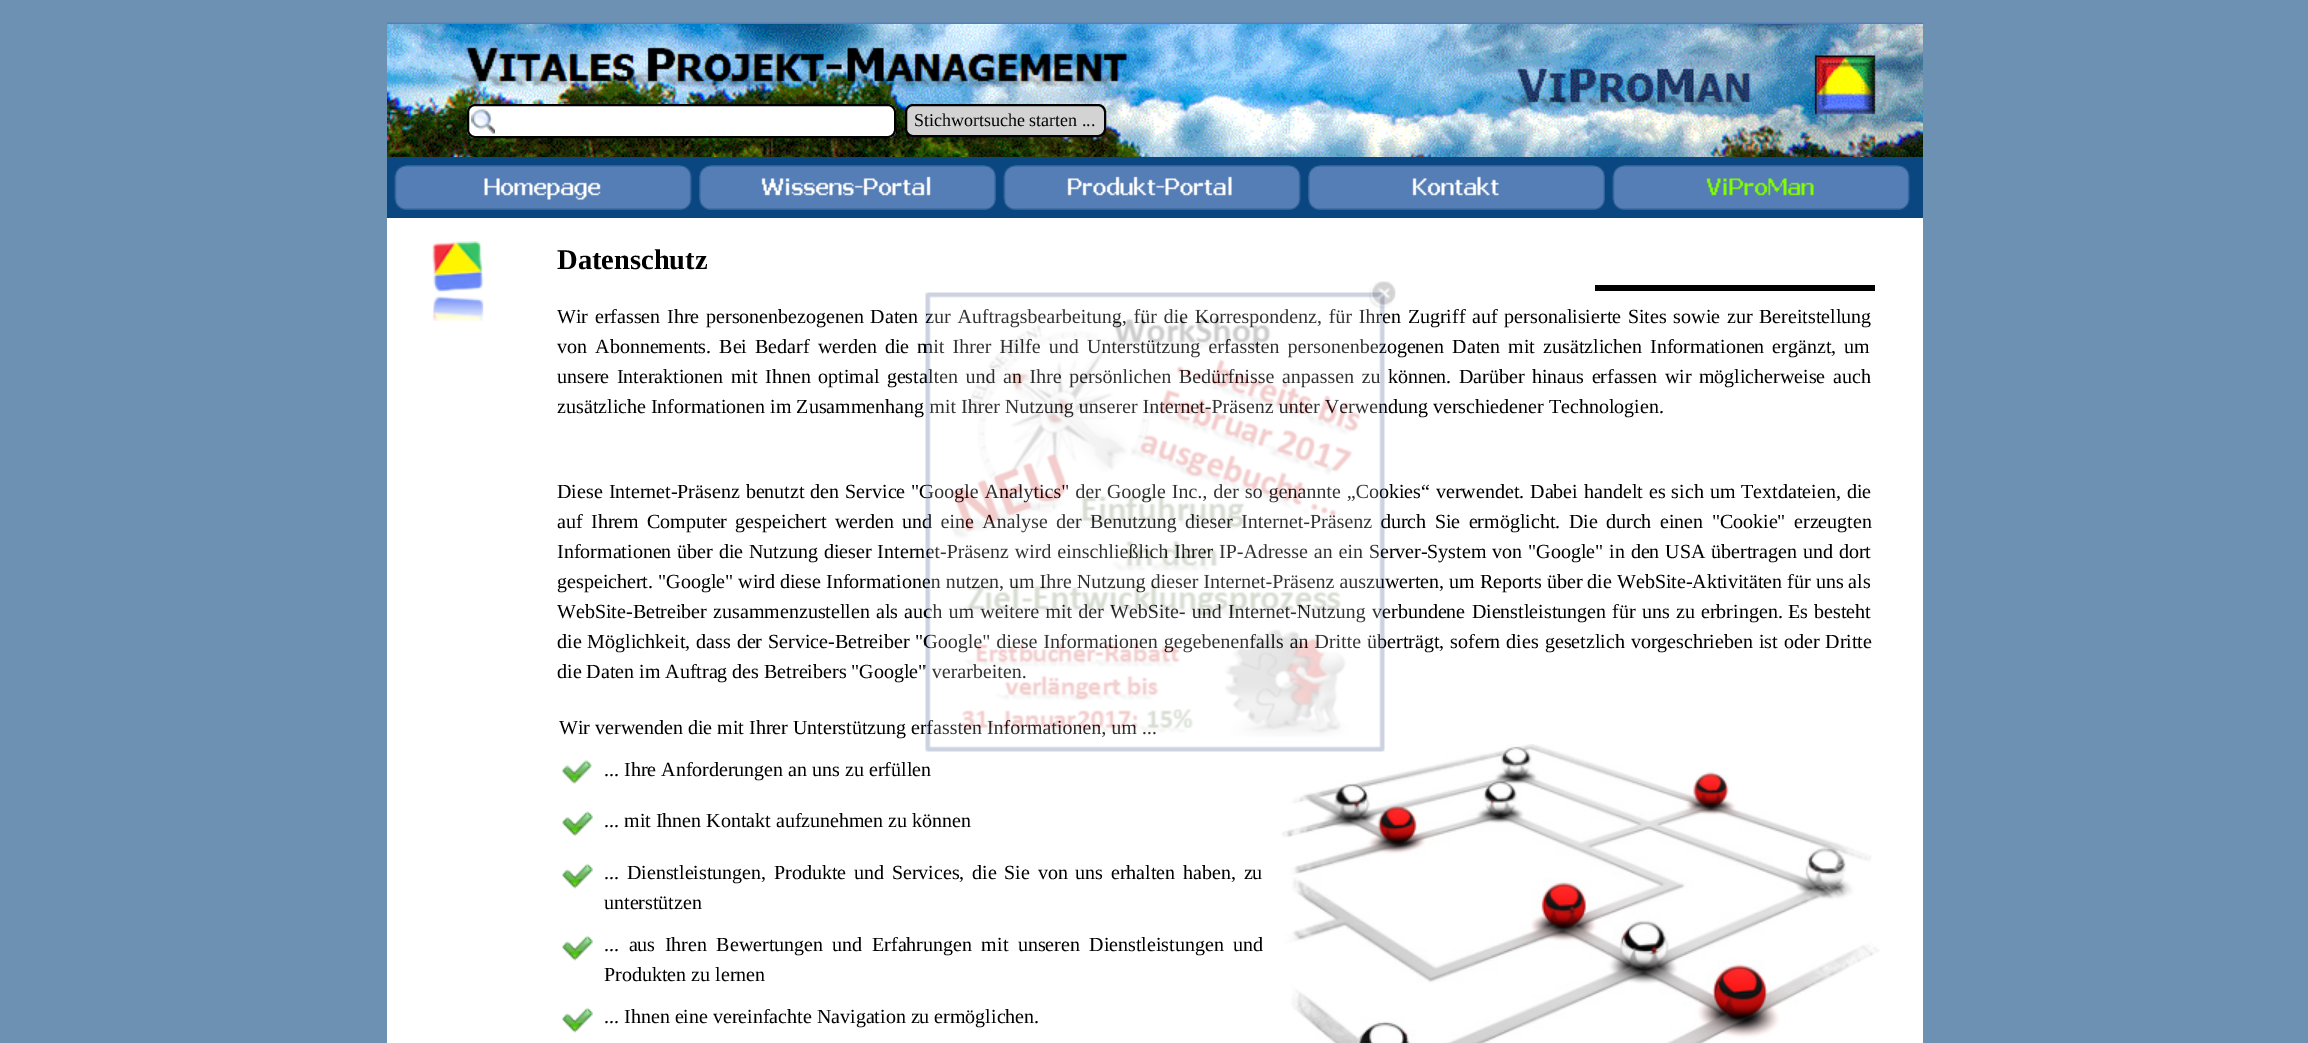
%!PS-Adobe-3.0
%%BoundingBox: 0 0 2308 1043
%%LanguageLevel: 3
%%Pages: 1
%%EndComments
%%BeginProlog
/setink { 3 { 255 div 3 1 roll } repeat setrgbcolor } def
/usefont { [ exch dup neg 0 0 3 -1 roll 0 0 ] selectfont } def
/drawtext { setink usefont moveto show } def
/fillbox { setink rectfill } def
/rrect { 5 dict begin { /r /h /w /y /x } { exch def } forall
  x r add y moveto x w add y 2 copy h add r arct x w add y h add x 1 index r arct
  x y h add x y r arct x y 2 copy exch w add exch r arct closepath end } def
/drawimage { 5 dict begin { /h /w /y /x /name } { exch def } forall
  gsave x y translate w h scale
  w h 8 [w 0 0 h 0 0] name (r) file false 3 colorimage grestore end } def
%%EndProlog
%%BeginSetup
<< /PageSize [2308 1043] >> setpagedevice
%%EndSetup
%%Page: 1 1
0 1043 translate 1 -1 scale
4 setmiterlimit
0 0 2308 1043 108 145 179 fillbox
387 23 1536 1 86 126 182 fillbox
387 22 1536 1 97 136 180 fillbox
(assets/img1.rgb) 387 24 1536 133 drawimage
255 255 255 setink
467 104 429 34 8 rrect fill
(assets/img2.rgb) 471 109 24 25 drawimage
0 0 0 setink
2 setlinewidth
468 105 427 32 7 rrect stroke
211 211 211 setink
906 105 199 31 7 rrect gsave fill grestore
0 0 0 setink
stroke
(Stichwortsuche starten ...) 914 126 /LiberationSerif-Regular 18 0 0 0 drawtext
387 157 1536 61 10 71 128 fillbox
(assets/img3.rgb) 394 165 298 45 drawimage
(assets/img4.rgb) 699 165 297 45 drawimage
(assets/img5.rgb) 1003 165 298 45 drawimage
(assets/img6.rgb) 1308 165 297 45 drawimage
(assets/img7.rgb) 1612 165 298 45 drawimage
387 218 1536 825 255 255 255 fillbox
(assets/img8.rgb) 432 240 52 81 drawimage
(Datenschutz) 557 269 /LiberationSerif-Bold 28.5 0 0 0 drawtext
1595 285 280 6 0 0 0 fillbox
/LiberationSerif-Regular 20 usefont
557 323 moveto 1.75 0 32 (Wir erfassen Ihre personenbezogenen Daten zur Auftragsbearbeitung, für die Korrespondenz, für Ihren Zugriff auf personalisierte Sites sowie zur Bereitstellung) widthshow
557 353 moveto 3.1 0 32 (von Abonnements. Bei Bedarf werden die mit Ihrer Hilfe und Unterstützung erfassten personenbezogenen Daten mit zusätzlichen Informationen ergänzt, um) widthshow
557 383 moveto 2.5 0 32 (unsere Interaktionen mit Ihnen optimal gestalten und an Ihre persönlichen Bedürfnisse anpassen zu können. Darüber hinaus erfassen wir möglicherweise auch) widthshow
(zusätzliche Informationen im Zusammenhang mit Ihrer Nutzung unserer Internet-Präsenz unter Verwendung verschiedener Technologien.) 557 413 /LiberationSerif-Regular 20 0 0 0 drawtext
557 498 moveto 1 0 32 (Diese Internet-Präsenz benutzt den Service "Google Analytics" der Google Inc., der so genannte „Cookies“ verwendet. Dabei handelt es sich um Textdateien, die) widthshow
557 528 moveto 3.4 0 32 (auf Ihrem Computer gespeichert werden und eine Analyse der Benutzung dieser Internet-Präsenz durch Sie ermöglicht. Die durch einen "Cookie" erzeugten) widthshow
557 558 moveto 0.9 0 32 (Informationen über die Nutzung dieser Internet-Präsenz wird einschließlich Ihrer IP-Adresse an ein Server-System von "Google" in den USA übertragen und dort) widthshow
(gespeichert. "Google" wird diese Informationen nutzen, um Ihre Nutzung dieser Internet-Präsenz auszuwerten, um Reports über die WebSite-Aktivitäten für uns als) 557 588 /LiberationSerif-Regular 20 0 0 0 drawtext
557 618 moveto 1.25 0 32 (WebSite-Betreiber zusammenzustellen als auch um weitere mit der WebSite- und Internet-Nutzung verbundene Dienstleistungen für uns zu erbringen.) widthshow
1788 618 moveto 1.25 0 32 (Es besteht) widthshow
557 648 moveto 1 0 32 (die Möglichkeit, dass der Service-Betreiber "Google" diese Informationen gegebenenfalls an Dritte überträgt, sofern dies gesetzlich vorgeschrieben ist oder Dritte) widthshow
(die Daten im Auftrag des Betreibers "Google" verarbeiten.) 557 678 /LiberationSerif-Regular 20 0 0 0 drawtext
(Wir verwenden die mit Ihrer Unterstützung erfassten Informationen, um ...) 559 734 /LiberationSerif-Regular 20 0 0 0 drawtext
(assets/img9.rgb) 562 760 30 24 drawimage
(... Ihre Anforderungen an uns zu erfüllen) 604 776 /LiberationSerif-Regular 20 0 0 0 drawtext
(assets/img10.rgb) 562 811 31 25 drawimage
(... mit Ihnen Kontakt aufzunehmen zu können) 604 827 /LiberationSerif-Regular 20 0 0 0 drawtext
(assets/img11.rgb) 562 863 31 26 drawimage
604 879 moveto 2.75 0 32 (... Dienstleistungen, Produkte und Services, die Sie von uns erhalten haben, zu) widthshow
(unterstützen) 604 909 /LiberationSerif-Regular 20 0 0 0 drawtext
(assets/img11.rgb) 562 935 31 26 drawimage
604 951 moveto 4.5 0 32 (... aus Ihren Bewertungen und Erfahrungen mit unseren Dienstleistungen und) widthshow
(Produkten zu lernen) 604 981 /LiberationSerif-Regular 20 0 0 0 drawtext
(assets/img11.rgb) 562 1007 31 26 drawimage
(... Ihnen eine vereinfachte Navigation zu ermöglichen.) 604 1023 /LiberationSerif-Regular 20 0 0 0 drawtext
(assets/img12.rgb) 1281 744 599 299 drawimage
(assets/img14.rgb) 925 292 460 460 drawimage
(assets/img13.rgb) 1369 281 27 27 drawimage
showpage
%%EOF
